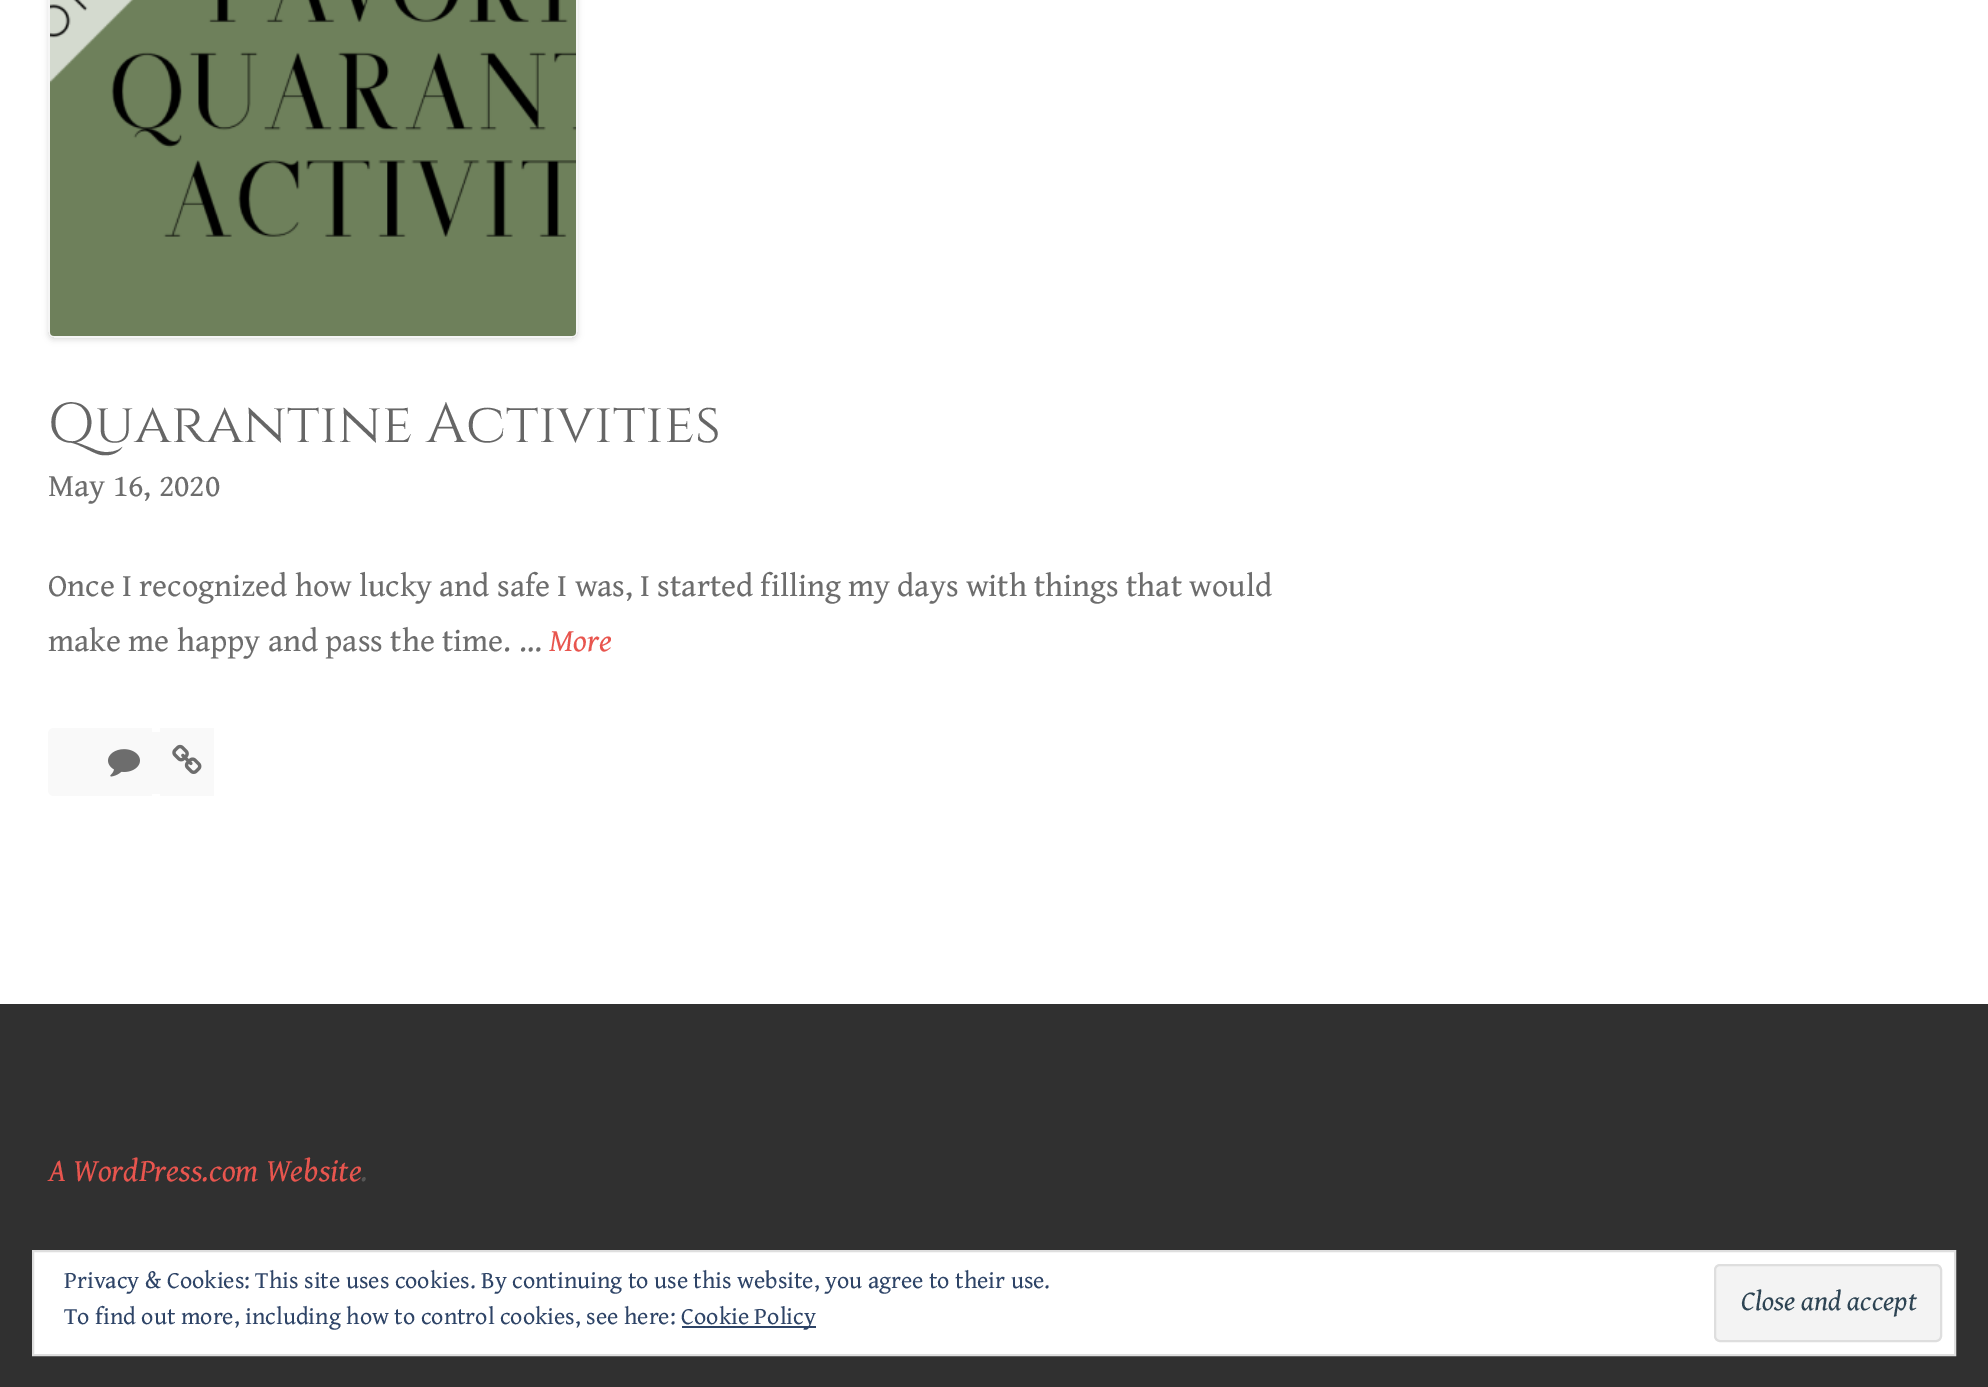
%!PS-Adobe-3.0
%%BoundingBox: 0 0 1988 1387
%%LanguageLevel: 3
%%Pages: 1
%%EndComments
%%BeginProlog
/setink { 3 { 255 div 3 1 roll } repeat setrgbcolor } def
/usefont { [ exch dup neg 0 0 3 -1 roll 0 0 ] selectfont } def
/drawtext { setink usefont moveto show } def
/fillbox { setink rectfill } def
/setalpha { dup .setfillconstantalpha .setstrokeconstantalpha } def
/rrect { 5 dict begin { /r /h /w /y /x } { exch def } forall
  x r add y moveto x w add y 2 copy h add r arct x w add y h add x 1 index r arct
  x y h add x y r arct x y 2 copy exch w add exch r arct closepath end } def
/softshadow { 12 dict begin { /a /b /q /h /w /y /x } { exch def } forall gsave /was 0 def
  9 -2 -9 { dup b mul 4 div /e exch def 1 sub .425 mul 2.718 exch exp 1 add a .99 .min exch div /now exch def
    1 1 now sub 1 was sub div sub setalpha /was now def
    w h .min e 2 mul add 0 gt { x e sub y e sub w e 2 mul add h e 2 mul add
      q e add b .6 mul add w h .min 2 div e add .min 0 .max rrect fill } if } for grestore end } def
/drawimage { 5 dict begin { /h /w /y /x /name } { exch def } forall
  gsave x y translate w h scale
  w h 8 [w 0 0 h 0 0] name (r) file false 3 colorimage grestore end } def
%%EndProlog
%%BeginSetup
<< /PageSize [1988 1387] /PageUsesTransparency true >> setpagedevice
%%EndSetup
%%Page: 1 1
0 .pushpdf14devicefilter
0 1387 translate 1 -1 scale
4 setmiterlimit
0 0 1988 1387 255 255 255 fillbox
gsave
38 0 moveto 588 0 lineto 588 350 lineto 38 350 lineto closepath 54 -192 moveto 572 -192 lineto 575.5 -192 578 -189.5 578 -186 curveto 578 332 lineto 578 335.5 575.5 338 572 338 curveto 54 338 lineto 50.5 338 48 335.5 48 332 curveto 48 -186 lineto 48 -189.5 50.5 -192 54 -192 curveto closepath eoclip newpath
0 0 0 setink
48 -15 530 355 6 3 0.12 softshadow
grestore
0.3 setalpha
221 221 221 setink
2 setlinewidth
49 -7 528 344 5 rrect stroke
1 setalpha
(assets/img1.rgb) 50 0 526 336 drawimage
(Quarantine Activities) 48 442 /Cinzel-Regular 56 102 102 102 drawtext
(May 16, 2020) 48 496 /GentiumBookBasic-Regular 32 109 109 109 drawtext
(Once I recognized how lucky and safe I was, I started filling my days with things that would) 48 596 /GentiumBookBasic-Regular 32 109 109 109 drawtext
(make me happy and pass the time. …) 48 651 /GentiumBookBasic-Regular 32 109 109 109 drawtext
(More) 549 651 /GentiumBookBasic-Italic 32 232 85 78 drawtext
249 249 249 setink
54 728 moveto 152 728 lineto 152 796 lineto 54 796 lineto 50.5 796 48 793.5 48 790 curveto 48 734 lineto 48 730.5 50.5 728 54 728 curveto closepath fill
152 732 8 62 249 249 249 fillbox
160 728 54 68 249 249 249 fillbox
(assets/img2.rgb) 108 749 32 28 drawimage
(assets/img3.rgb) 172 744 30 30 drawimage
0 1004 1988 383 48 48 48 fillbox
(A WordPress.com Website) 48 1181 /GentiumBookBasic-Italic 32 232 85 78 drawtext
(.) 361 1181 /GentiumBookBasic-Italic 32 85 85 85 drawtext
255 255 255 setink
33 1251 moveto 1955 1251 lineto 1955 1355 lineto 33 1355 lineto closepath gsave fill grestore
222 222 222 setink
stroke
(Privacy & Cookies: This site uses cookies. By continuing to use this website, you agree to their use.) 64 1288 /GentiumBookBasic-Regular 24 46 68 103 drawtext
(To find out more, including how to control cookies, see here:) 64 1324 /GentiumBookBasic-Regular 24 46 68 103 drawtext
682 1326 134 2 46 68 103 fillbox
(Cookie Policy) 681 1324 /GentiumBookBasic-Regular 24 46 68 103 drawtext
243 243 243 setink
1715 1265 226 76 5 rrect gsave fill grestore
222 222 222 setink
stroke
(Close and accept) 1741 1310 /GentiumBookBasic-Italic 28 46 68 83 drawtext
.poppdf14devicefilter showpage
%%EOF
